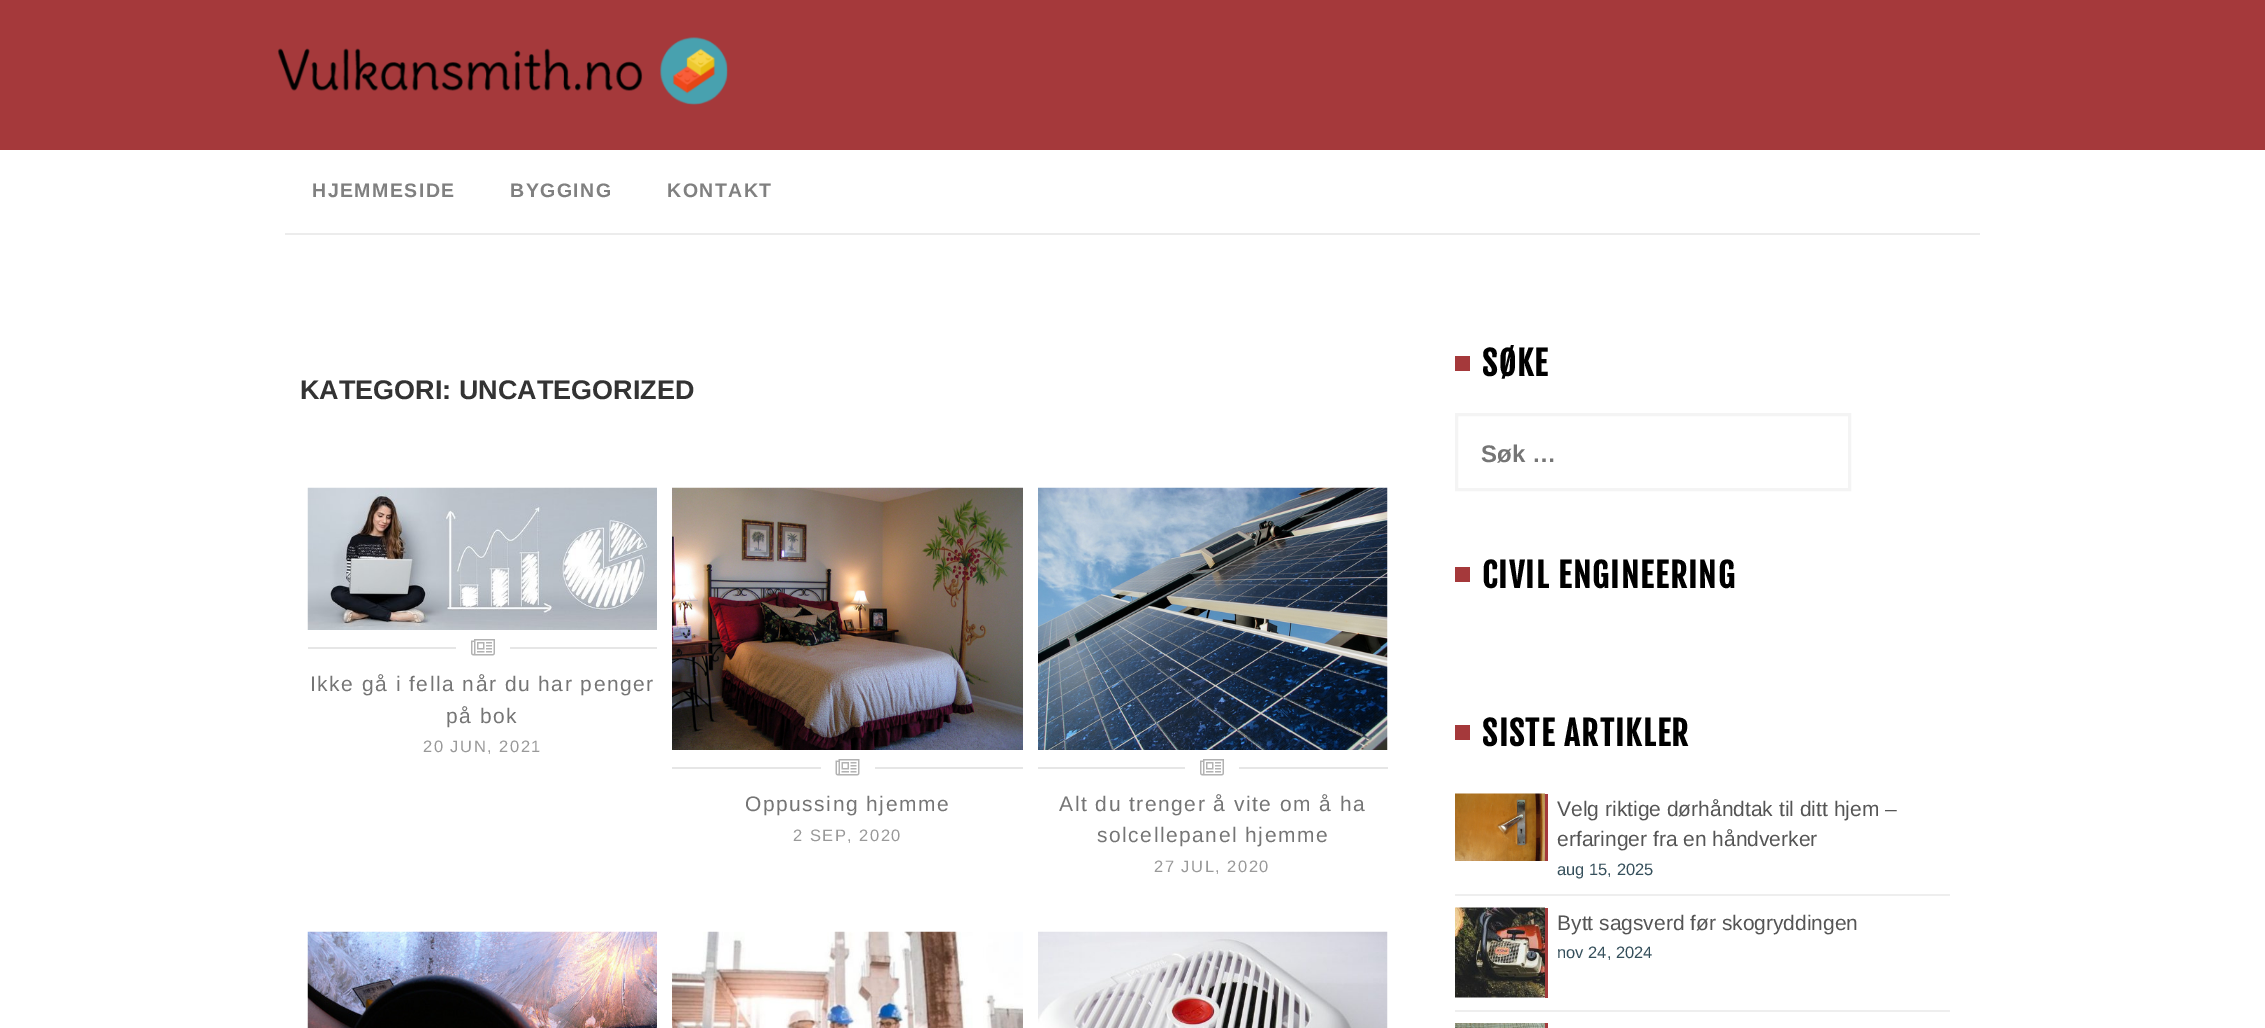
%!PS-Adobe-3.0
%%BoundingBox: 0 0 2265 1028
%%LanguageLevel: 3
%%Pages: 1
%%EndComments
%%BeginProlog
/setink { 3 { 255 div 3 1 roll } repeat setrgbcolor } def
/usefont { [ exch dup neg 0 0 3 -1 roll 0 0 ] selectfont } def
/drawtext { setink usefont moveto show } def
/fillbox { setink rectfill } def
/drawimage { 5 dict begin { /h /w /y /x /name } { exch def } forall
  gsave x y translate w h scale
  w h 8 [w 0 0 h 0 0] name (r) file false 3 colorimage grestore end } def
%%EndProlog
%%BeginSetup
<< /PageSize [2265 1028] >> setpagedevice
%%EndSetup
%%Page: 1 1
0 1028 translate 1 -1 scale
4 setmiterlimit
0 0 2265 1028 255 255 255 fillbox
0 0 2265 150 165 57 59 fillbox
(assets/img1.rgb) 277 37 451 68 drawimage
285 233 1695 2 236 236 236 fillbox
/LiberationSans-Bold 19.5 usefont
128 128 128 setink
312 197 moveto 1.5 0 (HJEMMESIDE) ashow
510 197 moveto 1.5 0 (BYGGING) ashow
667 197 moveto 1.5 0 (KONTAKT) ashow
(KATEGORI: UNCATEGORIZED) 300 399 /LiberationSans-Bold 27 51 51 51 drawtext
(assets/img2.rgb) 307 487 350 143 drawimage
308 647 349 2 230 230 230 fillbox
456 647 54 2 255 255 255 fillbox
(assets/img3.rgb) 471 639 24 17 drawimage
/LiberationSans-Regular 21 usefont
117 117 117 setink
310 691 moveto 1.5 0 (Ikke gå i fella når du har penger) ashow
446 723 moveto 1.5 0 (på bok) ashow
/LiberationSans-Regular 16.5 usefont
153 153 153 setink
423 752 moveto 1.5 0 (20 JUN, 2021) ashow
(assets/img4.rgb) 672 487 351 263 drawimage
672 767 351 2 230 230 230 fillbox
821 767 54 2 255 255 255 fillbox
(assets/img5.rgb) 835 759 25 17 drawimage
/LiberationSans-Regular 21 usefont
117 117 117 setink
745 811 moveto 1.5 0 (Oppussing hjemme) ashow
/LiberationSans-Regular 16.5 usefont
153 153 153 setink
793 841 moveto 1.5 0 (2 SEP, 2020) ashow
(assets/img6.rgb) 1038 487 350 263 drawimage
1038 767 350 2 230 230 230 fillbox
1185 767 54 2 255 255 255 fillbox
(assets/img3.rgb) 1200 759 24 17 drawimage
/LiberationSans-Regular 21 usefont
117 117 117 setink
1059 811 moveto 1.5 0 (Alt du trenger å vite om å ha) ashow
1097 842 moveto 1.5 0 (solcellepanel hjemme) ashow
/LiberationSans-Regular 16.5 usefont
153 153 153 setink
1154 872 moveto 1.5 0 (27 JUL, 2020) ashow
(assets/img7.rgb) 307 931 350 97 drawimage
(assets/img8.rgb) 672 931 351 97 drawimage
(assets/img9.rgb) 1038 931 350 97 drawimage
1455 356 15 15 165 57 59 fillbox
/FjallaOne-Bold 33 usefont
0 0 0 setink
1482 376 moveto 1.5 0 (SØKE) ashow
244 244 244 setink
3 setlinewidth
1456.5 414.5 393 75 rectstroke
(Søk …) 1481 462 /LiberationSans-Bold 24 117 117 117 drawtext
1455 567 15 15 165 57 59 fillbox
/FjallaOne-Bold 33 usefont
0 0 0 setink
1482 588 moveto 1.5 0 (CIVIL ENGINEERING) ashow
1455 725 15 15 165 57 59 fillbox
0 0 0 setink
1482 746 moveto 1.5 0 (SISTE ARTIKLER) ashow
1455 894 495 2 238 238 238 fillbox
(assets/img10.rgb) 1455 793 90 68 drawimage
1545 794 3 67 165 57 59 fillbox
(Velg riktige dørhåndtak til ditt hjem –) 1557 816 /LiberationSans-Regular 21 85 85 85 drawtext
(erfaringer fra en håndverker) 1557 846 /LiberationSans-Regular 21 85 85 85 drawtext
(aug 15, 2025) 1557 875 /LiberationSans-Regular 16.5 53 79 91 drawtext
1455 1010 495 2 238 238 238 fillbox
(assets/img11.rgb) 1455 907 90 91 drawimage
1545 908 3 90 165 57 59 fillbox
(Bytt sagsverd før skogryddingen) 1557 930 /LiberationSans-Regular 21 85 85 85 drawtext
(nov 24, 2024) 1557 958 /LiberationSans-Regular 16.5 53 79 91 drawtext
(assets/img12.rgb) 1455 1023 90 5 drawimage
1545 1023 3 5 165 57 59 fillbox
showpage
%%EOF
